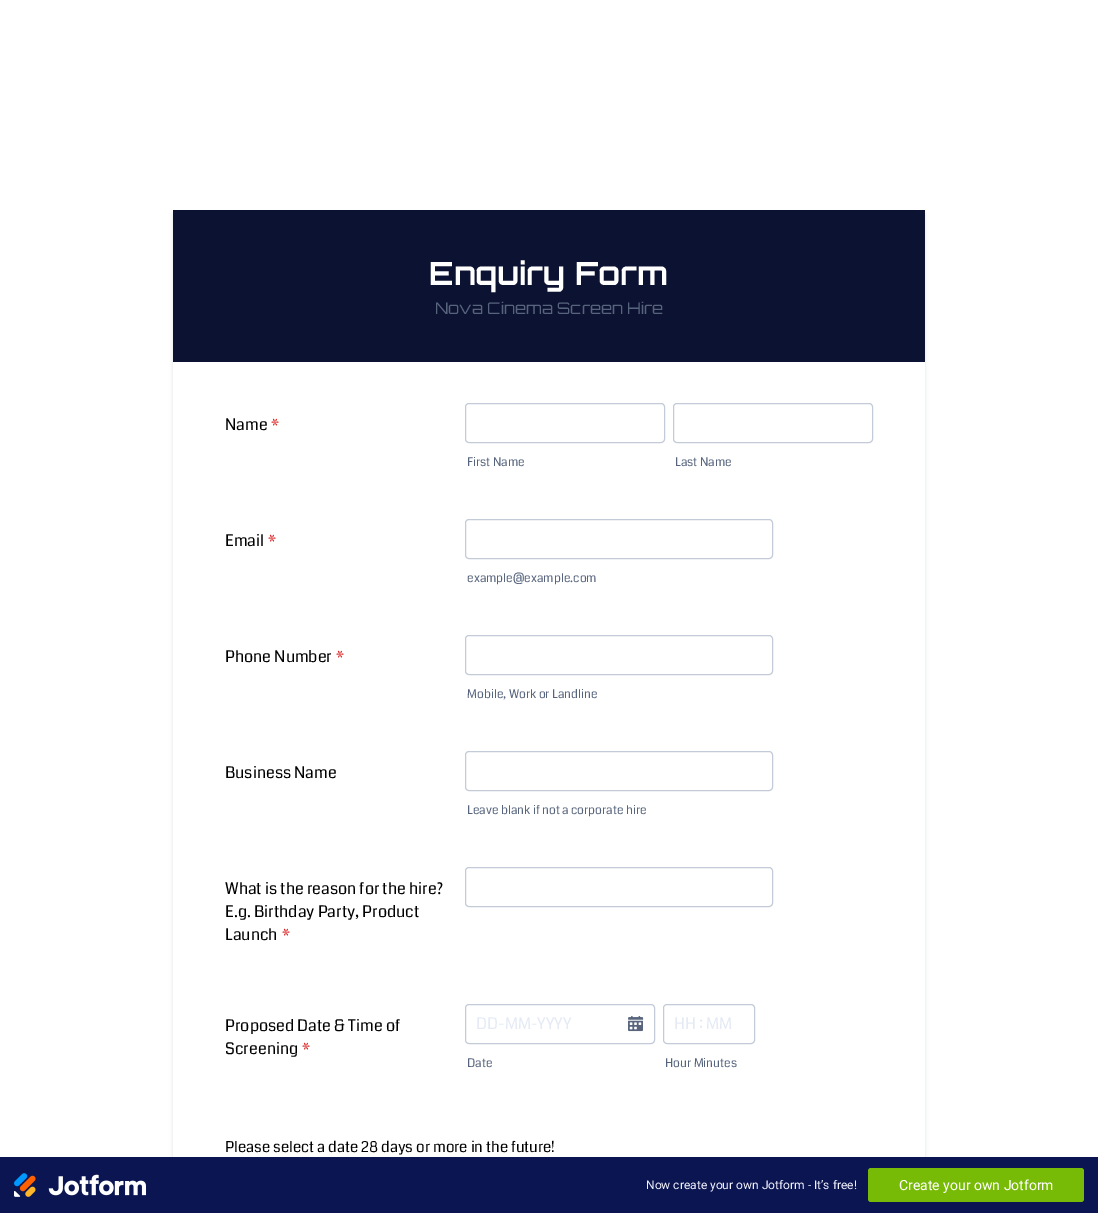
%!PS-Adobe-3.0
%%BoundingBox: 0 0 1098 1213
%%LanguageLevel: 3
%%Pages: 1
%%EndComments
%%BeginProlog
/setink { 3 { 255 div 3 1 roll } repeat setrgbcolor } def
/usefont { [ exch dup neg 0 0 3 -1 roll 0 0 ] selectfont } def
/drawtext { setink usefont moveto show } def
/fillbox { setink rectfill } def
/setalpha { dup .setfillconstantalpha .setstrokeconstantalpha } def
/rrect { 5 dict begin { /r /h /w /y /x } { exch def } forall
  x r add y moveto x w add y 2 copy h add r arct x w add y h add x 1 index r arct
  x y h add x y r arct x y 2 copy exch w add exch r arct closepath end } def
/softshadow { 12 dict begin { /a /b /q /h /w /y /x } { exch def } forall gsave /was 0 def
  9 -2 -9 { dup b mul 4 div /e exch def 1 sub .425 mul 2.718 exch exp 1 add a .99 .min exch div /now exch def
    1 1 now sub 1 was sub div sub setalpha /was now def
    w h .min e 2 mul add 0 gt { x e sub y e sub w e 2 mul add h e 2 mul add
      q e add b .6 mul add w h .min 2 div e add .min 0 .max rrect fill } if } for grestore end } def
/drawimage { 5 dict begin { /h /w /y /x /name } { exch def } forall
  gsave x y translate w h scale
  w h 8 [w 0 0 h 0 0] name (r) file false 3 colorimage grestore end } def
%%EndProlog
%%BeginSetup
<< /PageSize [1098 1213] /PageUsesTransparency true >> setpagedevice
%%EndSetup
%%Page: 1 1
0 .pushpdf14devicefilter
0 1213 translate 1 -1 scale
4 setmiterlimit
0 0 1098 1213 255 255 255 fillbox
gsave
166 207 moveto 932 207 lineto 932 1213 lineto 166 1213 lineto closepath 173 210 moveto 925 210 lineto 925 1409 lineto 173 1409 lineto closepath eoclip newpath
87 100 126 setink
173 214 752 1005 0 2 0.21 softshadow
grestore
173 210 752 152 12 18 49 fillbox
(Enquiry Form) 429 285 /Orbitron-Bold 32 255 255 255 drawtext
(Nova Cinema Screen Hire) 435 314 /Orbitron-Regular 16 87 100 126 drawtext
(Name) 225 430 /Coda-Regular 16 0 0 0 drawtext
(*) 271 430 /Coda-Regular 16 220 38 38 drawtext
195 202 216 setink
465.5 403.5 199 39 3.5 rrect stroke
(First Name) 467 466 /Coda-Regular 12 87 100 126 drawtext
195 202 216 setink
673.5 403.5 199 39 3.5 rrect stroke
(Last Name) 675 466 /Coda-Regular 12 87 100 126 drawtext
(Email) 225 546 /Coda-Regular 16 0 0 0 drawtext
(*) 268 546 /Coda-Regular 16 220 38 38 drawtext
195 202 216 setink
465.5 519.5 307 39 3.5 rrect stroke
(example@example.com) 467 582 /Coda-Regular 12 87 100 126 drawtext
(Phone Number) 225 662 /Coda-Regular 16 0 0 0 drawtext
(*) 336 662 /Coda-Regular 16 220 38 38 drawtext
195 202 216 setink
465.5 635.5 307 39 3.5 rrect stroke
(Mobile, Work or Landline) 467 698 /Coda-Regular 12 87 100 126 drawtext
(Business Name) 225 778 /Coda-Regular 16 0 0 0 drawtext
195 202 216 setink
465.5 751.5 307 39 3.5 rrect stroke
(Leave blank if not a corporate hire) 467 814 /Coda-Regular 12 87 100 126 drawtext
(What is the reason for the hire?) 225 894 /Coda-Regular 16 0 0 0 drawtext
(E.g. Birthday Party, Product) 225 917 /Coda-Regular 16 0 0 0 drawtext
(Launch) 225 940 /Coda-Regular 16 0 0 0 drawtext
(*) 282 940 /Coda-Regular 16 220 38 38 drawtext
195 202 216 setink
465.5 867.5 307 39 3.5 rrect stroke
(Proposed Date & Time of) 225 1031 /Coda-Regular 16 0 0 0 drawtext
(Screening) 225 1054 /Coda-Regular 16 0 0 0 drawtext
(*) 302 1054 /Coda-Regular 16 220 38 38 drawtext
(assets/img1.rgb) 628 1016 16 16 drawimage
195 202 216 setink
465.5 1004.5 189 39 3.5 rrect stroke
(DD-MM-YYYY) 476 1029 /Coda-Regular 16 229 234 244 drawtext
(Date) 467 1067 /Coda-Regular 12 87 100 126 drawtext
195 202 216 setink
663.5 1004.5 91 39 3.5 rrect stroke
(HH : MM) 674 1029 /Coda-Regular 16 229 234 244 drawtext
(Hour Minutes) 665 1067 /Coda-Regular 12 87 100 126 drawtext
(Please select a date 28 days or more in the future!) 225 1152 /Coda-Regular 15 0 0 0 drawtext
0 1157 1098 56 10 21 81 fillbox
(assets/img2.rgb) 14 1173 132 24 drawimage
(Now create your own Jotform - It’s free!) 646 1189 /Roboto-Regular 12 243 243 254 drawtext
120 187 7 setink
868 1168 216 34 3 rrect fill
(Create your own Jotform) 899 1190 /Roboto-Regular 14 255 255 255 drawtext
.poppdf14devicefilter showpage
%%EOF
